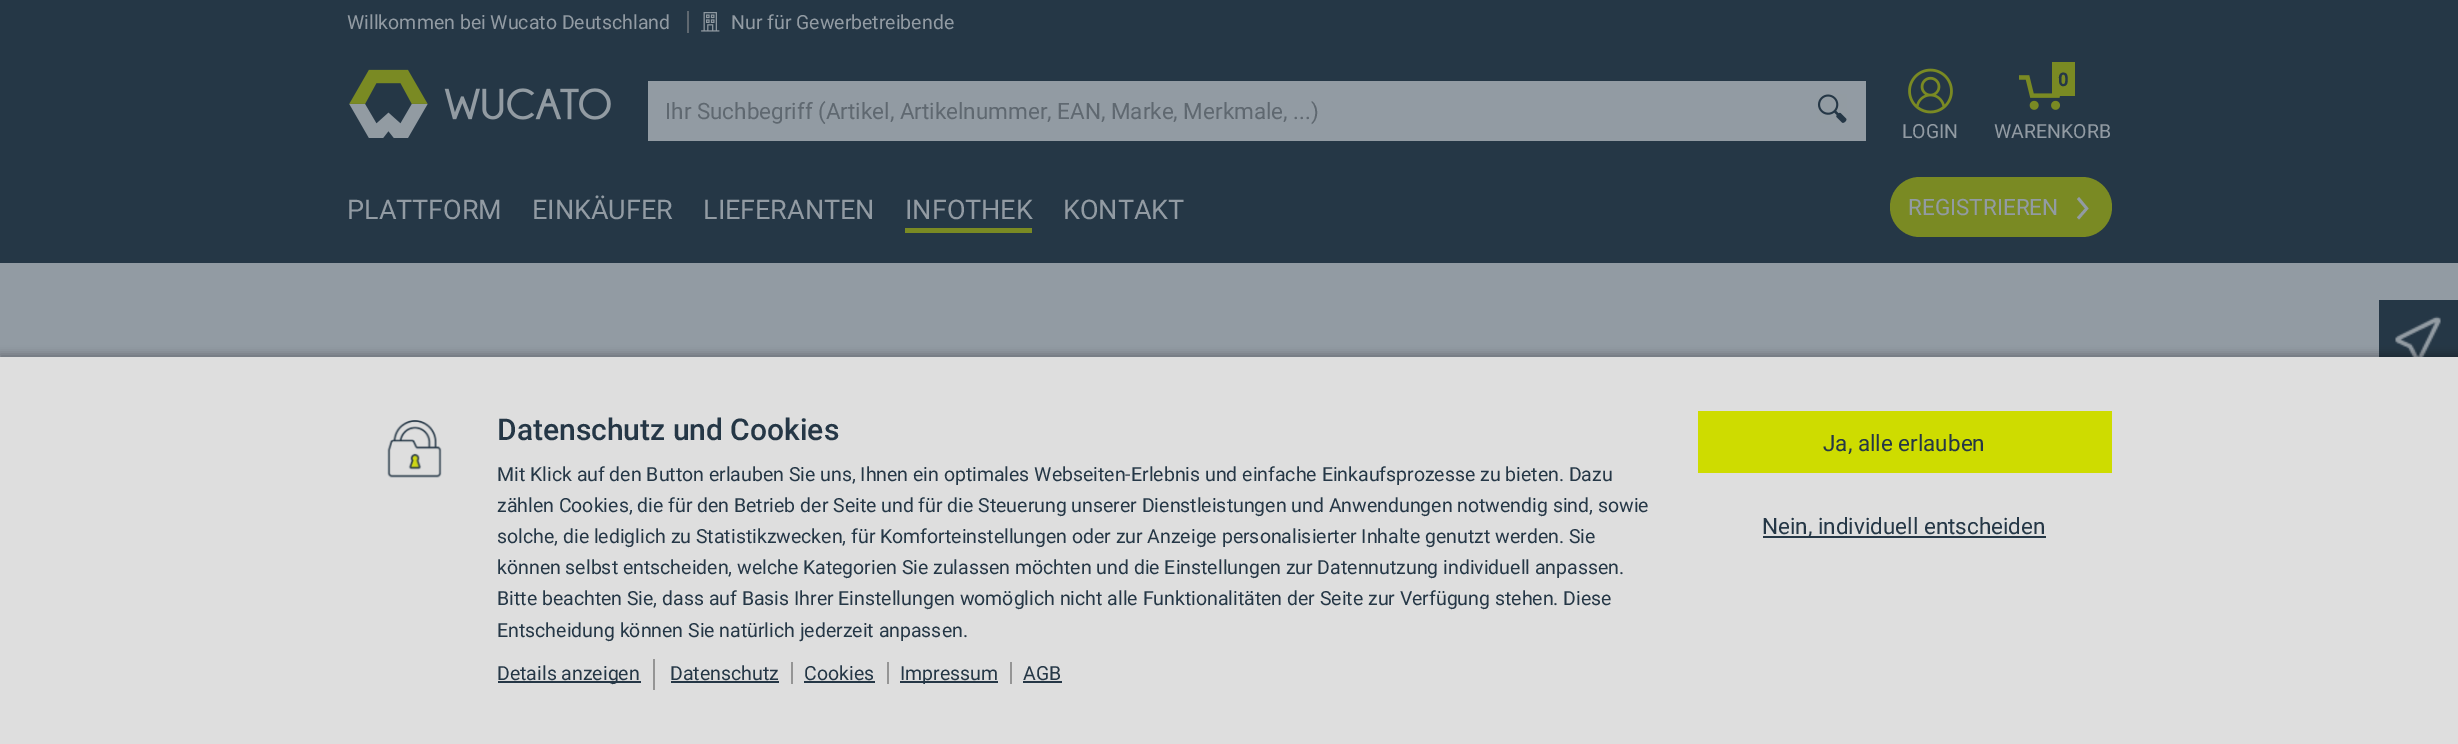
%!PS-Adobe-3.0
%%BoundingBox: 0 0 2458 744
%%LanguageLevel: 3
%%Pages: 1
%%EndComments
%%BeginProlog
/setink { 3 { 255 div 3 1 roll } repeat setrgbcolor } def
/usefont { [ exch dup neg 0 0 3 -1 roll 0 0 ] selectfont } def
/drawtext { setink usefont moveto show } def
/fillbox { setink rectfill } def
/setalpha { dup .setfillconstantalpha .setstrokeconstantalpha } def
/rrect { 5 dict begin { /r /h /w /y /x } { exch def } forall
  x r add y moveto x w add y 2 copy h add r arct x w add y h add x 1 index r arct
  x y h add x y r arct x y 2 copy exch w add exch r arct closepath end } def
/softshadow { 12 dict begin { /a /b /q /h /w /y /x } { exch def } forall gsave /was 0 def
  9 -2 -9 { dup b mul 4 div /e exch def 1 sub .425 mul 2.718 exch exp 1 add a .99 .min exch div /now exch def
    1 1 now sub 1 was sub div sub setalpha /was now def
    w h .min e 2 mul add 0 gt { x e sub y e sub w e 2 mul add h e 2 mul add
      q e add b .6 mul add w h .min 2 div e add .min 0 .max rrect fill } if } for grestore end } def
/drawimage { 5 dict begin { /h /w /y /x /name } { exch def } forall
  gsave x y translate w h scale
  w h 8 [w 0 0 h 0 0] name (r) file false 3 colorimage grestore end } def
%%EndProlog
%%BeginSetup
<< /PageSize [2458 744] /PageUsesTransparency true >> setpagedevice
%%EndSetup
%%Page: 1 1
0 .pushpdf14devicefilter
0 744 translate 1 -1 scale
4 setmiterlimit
0 0 2458 744 146 155 163 fillbox
0 0 2458 263 37 55 70 fillbox
(Willkommen bei Wucato Deutschland) 347 29 /Roboto-Regular 19.5 146 155 163 drawtext
687 11 2 22 95 104 112 fillbox
(assets/img1.rgb) 701 12 19 20 drawimage
(Nur für Gewerbetreibende) 731 29 /Roboto-Regular 19.5 146 155 163 drawtext
(assets/img2.rgb) 349 69 262 69 drawimage
648 81 1218 60 146 155 163 fillbox
(Ihr Suchbegriff \(Artikel, Artikelnummer, EAN, Marke, Merkmale, ...\)) 665 119 /Roboto-Regular 22.5 95 104 112 drawtext
(assets/img3.rgb) 1817 94 30 29 drawimage
(assets/img4.rgb) 2019 75 42 35 drawimage
2052 62 23 34 122 138 35 fillbox
(0) 2058 86 /Roboto-Bold 18 37 55 70 drawtext
(WARENKORB) 1994 138 /Roboto-Regular 19.5 146 155 163 drawtext
(assets/img5.rgb) 1908 68 45 46 drawimage
(LOGIN) 1902 138 /Roboto-Regular 19.5 146 155 163 drawtext
(PLATTFORM) 347 219 /Roboto-Regular 27 146 155 163 drawtext
(EINKÄUFER) 532 219 /Roboto-Regular 27 146 155 163 drawtext
(LIEFERANTEN) 703 219 /Roboto-Regular 27 146 155 163 drawtext
905 228 127 5 122 138 35 fillbox
(INFOTHEK) 905 219 /Roboto-Regular 27 146 155 163 drawtext
(KONTAKT) 1063 219 /Roboto-Regular 27 146 155 163 drawtext
122 138 35 setink
1890 177 222 60 30 rrect fill
(REGISTRIEREN) 1908 215 /Roboto-Regular 22.5 146 155 163 drawtext
2085 208.5 moveto 2077 217.5 lineto 2079 219.5 lineto 2088.5 208.5 lineto 2079 197 lineto 2077 199 lineto closepath fill
2379 300 79 57 37 55 70 fillbox
(assets/img6.rgb) 2395 316 46 41 drawimage
0 0 0 setink
0 354 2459 387 0 4 0.26 softshadow
0 357 2458 387 222 222 222 fillbox
(assets/img7.rgb) 387 420 55 58 drawimage
(Datenschutz und Cookies) 497 440 /Roboto-Medium 30 37 55 70 drawtext
(Mit Klick auf den Button erlauben Sie uns, Ihnen ein optimales Webseiten-Erlebnis und einfache Einkaufsprozesse zu bieten. Dazu) 497 481 /Roboto-Regular 19.5 37 55 70 drawtext
(zählen Cookies, die für den Betrieb der Seite und für die Steuerung unserer Dienstleistungen und Anwendungen notwendig sind, sowie) 497 512 /Roboto-Regular 19.5 37 55 70 drawtext
(solche, die lediglich zu Statistikzwecken, für Komforteinstellungen oder zur Anzeige personalisierter Inhalte genutzt werden. Sie) 497 543 /Roboto-Regular 19.5 37 55 70 drawtext
(können selbst entscheiden, welche Kategorien Sie zulassen möchten und die Einstellungen zur Datennutzung individuell anpassen.) 497 574 /Roboto-Regular 19.5 37 55 70 drawtext
(Bitte beachten Sie, dass auf Basis Ihrer Einstellungen womöglich nicht alle Funktionalitäten der Seite zur Verfügung stehen. Diese) 497 605 /Roboto-Regular 19.5 37 55 70 drawtext
(Entscheidung können Sie natürlich jederzeit anpassen.) 497 637 /Roboto-Regular 19.5 37 55 70 drawtext
653 659 2 31 149 149 149 fillbox
498 681 143 2 37 55 70 fillbox
(Details anzeigen) 497 680 /Roboto-Regular 19.5 37 55 70 drawtext
(Datenschutz) 670 680 /Roboto-Regular 19.5 37 55 70 drawtext
791 662 2 22 149 149 149 fillbox
671 681 108 2 37 55 70 fillbox
(Cookies) 804 680 /Roboto-Regular 19.5 37 55 70 drawtext
887 662 2 22 149 149 149 fillbox
804 681 71 2 37 55 70 fillbox
900 681 98 2 37 55 70 fillbox
(Impressum) 900 680 /Roboto-Regular 19.5 37 55 70 drawtext
1010 662 2 22 149 149 149 fillbox
(AGB) 1023 680 /Roboto-Regular 19.5 37 55 70 drawtext
1023 681 39 2 37 55 70 fillbox
1698 411 414 62 206 220 0 fillbox
(Ja, alle erlauben) 1823 451 /Roboto-Regular 22.5 37 55 70 drawtext
1763 536 283 2 37 55 70 fillbox
(Nein, individuell entscheiden) 1762 534 /Roboto-Regular 22.5 37 55 70 drawtext
.poppdf14devicefilter showpage
%%EOF
